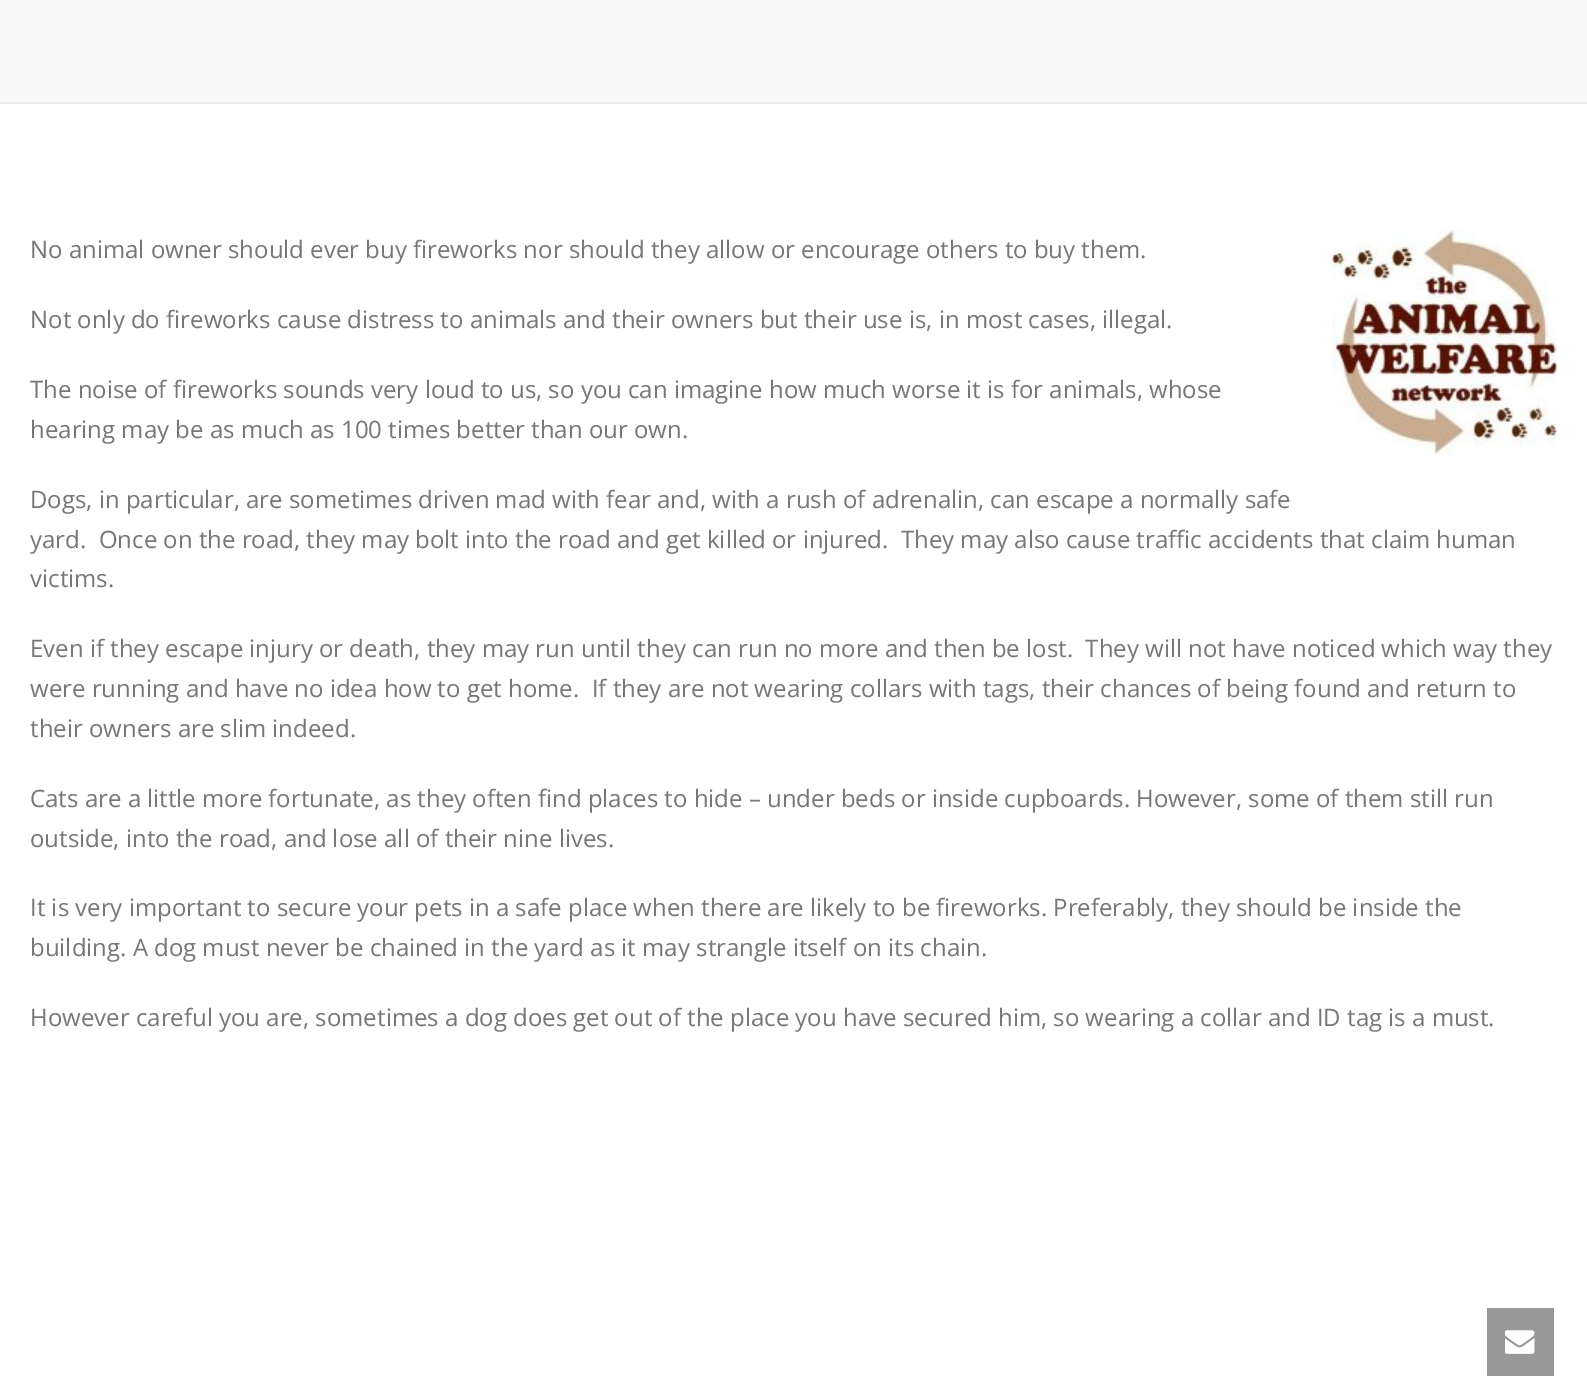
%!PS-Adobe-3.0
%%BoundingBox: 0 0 1587 1398
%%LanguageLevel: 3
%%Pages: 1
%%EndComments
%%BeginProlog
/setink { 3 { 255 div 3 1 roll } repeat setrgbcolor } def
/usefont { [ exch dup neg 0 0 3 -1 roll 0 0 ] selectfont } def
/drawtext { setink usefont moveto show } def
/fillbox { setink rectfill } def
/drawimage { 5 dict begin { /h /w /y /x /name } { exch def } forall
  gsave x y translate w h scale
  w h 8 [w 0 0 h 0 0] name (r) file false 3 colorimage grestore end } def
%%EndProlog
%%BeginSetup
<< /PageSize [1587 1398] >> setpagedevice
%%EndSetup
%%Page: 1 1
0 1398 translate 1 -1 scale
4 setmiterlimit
0 0 1587 1398 255 255 255 fillbox
0 0 1587 102 247 247 247 fillbox
0 102 1587 2 237 237 237 fillbox
(No animal owner should ever buy fireworks nor should they allow or encourage others to buy them.) 30 258 /OpenSans-Regular 24 119 119 119 drawtext
(assets/img1.rgb) 1332 229 225 226 drawimage
(Not only do fireworks cause distress to animals and their owners but their use is, in most cases, illegal.) 30 328 /OpenSans-Regular 24 119 119 119 drawtext
(The noise of fireworks sounds very loud to us, so you can imagine how much worse it is for animals, whose) 30 398 /OpenSans-Regular 24 119 119 119 drawtext
(hearing may be as much as 100 times better than our own.) 30 438 /OpenSans-Regular 24 119 119 119 drawtext
(Dogs, in particular, are sometimes driven mad with fear and, with a rush of adrenalin, can escape a normally safe) 30 508 /OpenSans-Regular 24 119 119 119 drawtext
(yard.  Once on the road, they may bolt into the road and get killed or injured.  They may also cause traffic accidents that claim human) 30 548 /OpenSans-Regular 24 119 119 119 drawtext
(victims.) 30 587 /OpenSans-Regular 24 119 119 119 drawtext
(Even if they escape injury or death, they may run until they can run no more and then be lost.  They will not have noticed which way they) 30 657 /OpenSans-Regular 24 119 119 119 drawtext
(were running and have no idea how to get home.  If they are not wearing collars with tags, their chances of being found and return to) 30 697 /OpenSans-Regular 24 119 119 119 drawtext
(their owners are slim indeed.) 30 737 /OpenSans-Regular 24 119 119 119 drawtext
(Cats are a little more fortunate, as they often find places to hide – under beds or inside cupboards. However, some of them still run) 30 807 /OpenSans-Regular 24 119 119 119 drawtext
(outside, into the road, and lose all of their nine lives.) 30 847 /OpenSans-Regular 24 119 119 119 drawtext
(It is very important to secure your pets in a safe place when there are likely to be fireworks. Preferably, they should be inside the) 30 916 /OpenSans-Regular 24 119 119 119 drawtext
(building. A dog must never be chained in the yard as it may strangle itself on its chain.) 30 956 /OpenSans-Regular 24 119 119 119 drawtext
(However careful you are, sometimes a dog does get out of the place you have secured him, so wearing a collar and ID tag is a must.) 30 1026 /OpenSans-Regular 24 119 119 119 drawtext
1487 1308 67 68 153 153 153 fillbox
(assets/img2.rgb) 1505 1330 30 24 drawimage
showpage
%%EOF
